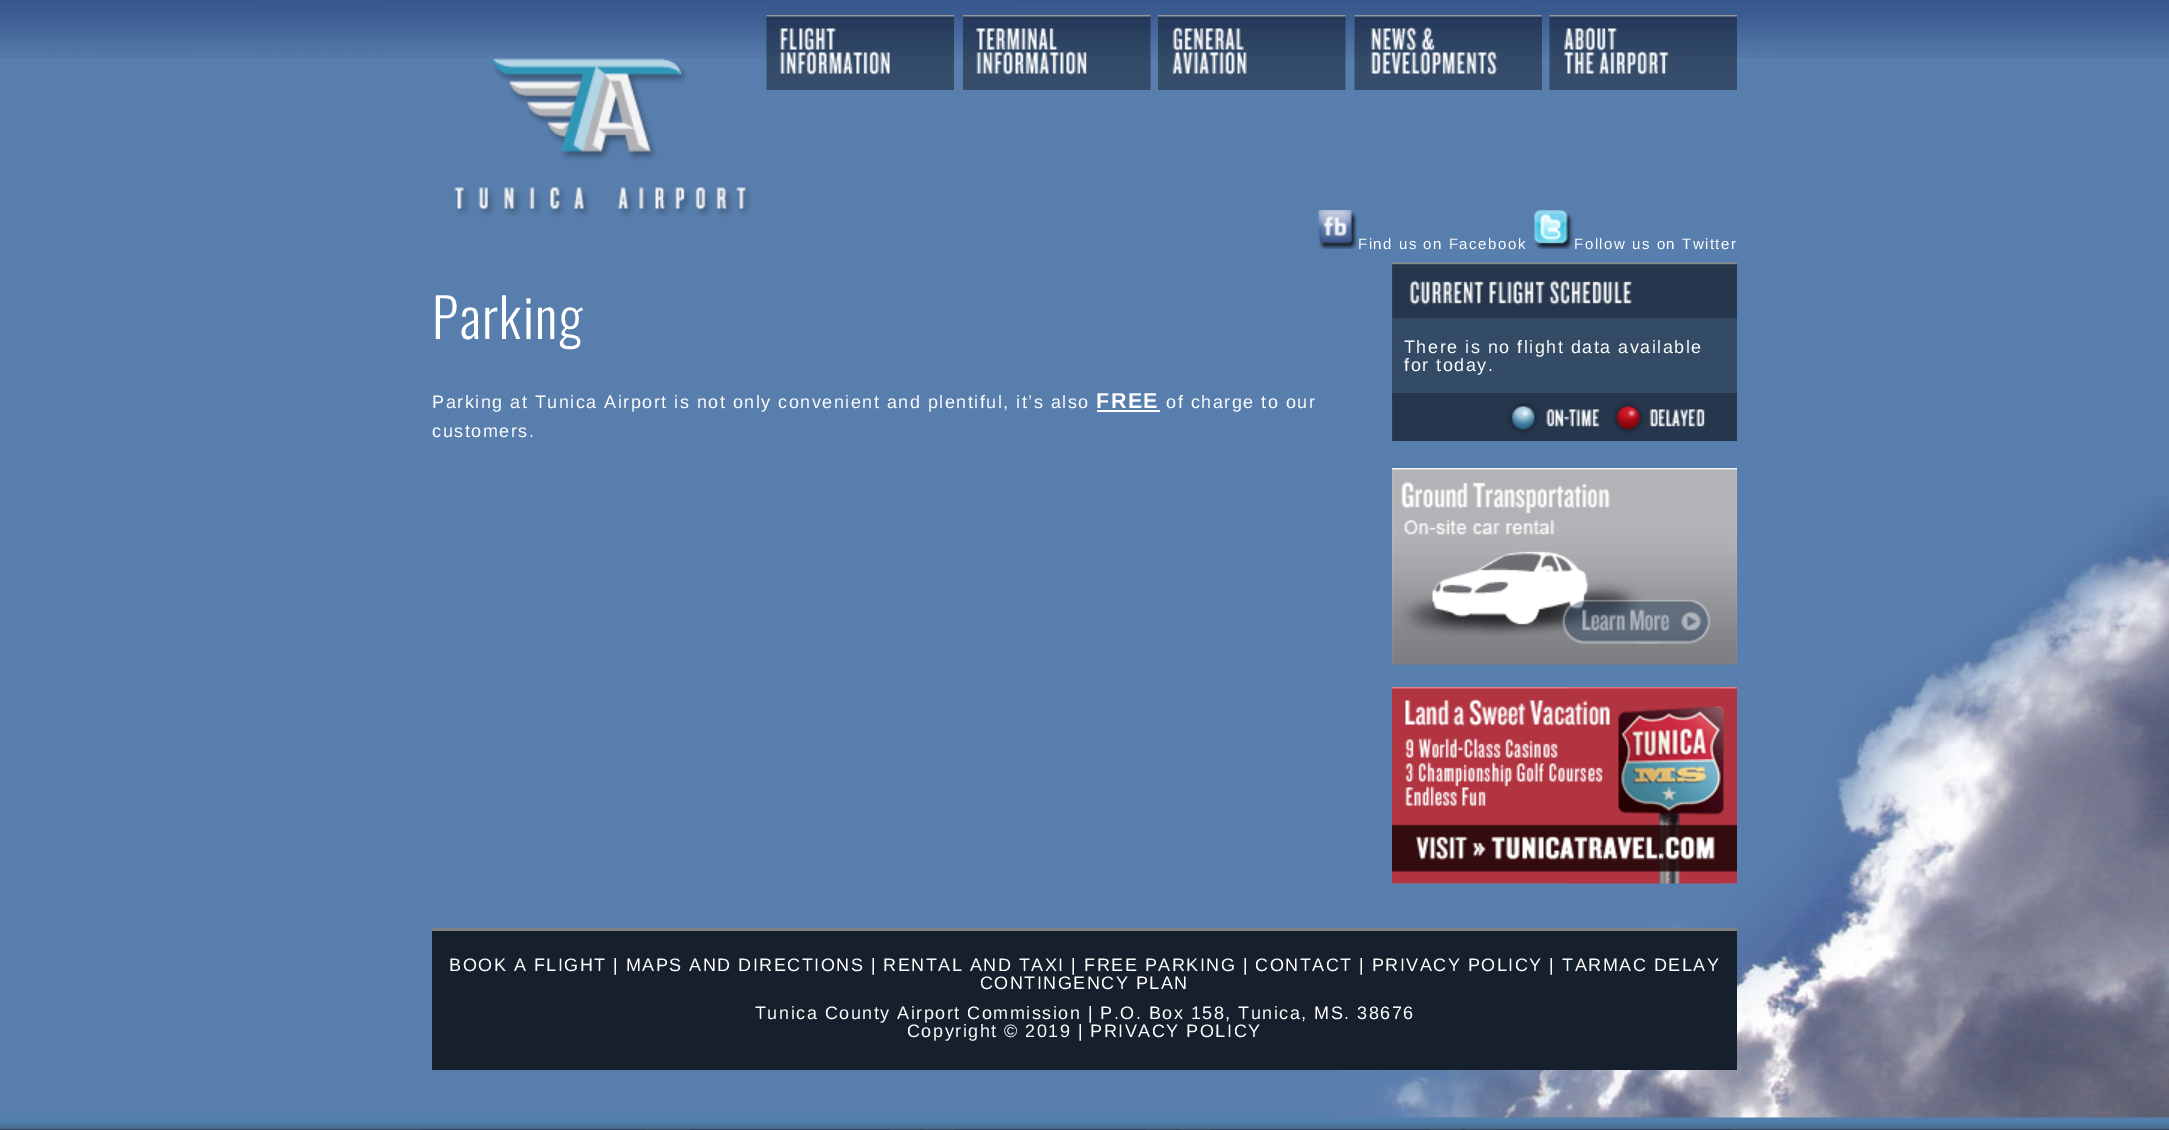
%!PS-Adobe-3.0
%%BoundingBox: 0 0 2169 1130
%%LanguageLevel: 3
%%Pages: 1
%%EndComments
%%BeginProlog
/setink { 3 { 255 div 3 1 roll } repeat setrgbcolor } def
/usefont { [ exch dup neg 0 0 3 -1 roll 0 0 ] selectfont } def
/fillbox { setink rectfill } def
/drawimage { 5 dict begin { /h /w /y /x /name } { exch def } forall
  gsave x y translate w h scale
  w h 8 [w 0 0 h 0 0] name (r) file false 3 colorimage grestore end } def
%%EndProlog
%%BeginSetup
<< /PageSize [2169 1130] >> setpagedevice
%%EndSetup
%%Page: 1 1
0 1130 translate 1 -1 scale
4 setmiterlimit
0 0 2169 1130 88 126 173 fillbox
(assets/img1.rgb) 1342 496 827 622 drawimage
(assets/img2.rgb) 0 0 2169 58 drawimage
(assets/img3.rgb) 454 58 297 159 drawimage
(assets/img4.rgb) 766 15 188 75 drawimage
(assets/img5.rgb) 963 15 188 75 drawimage
(assets/img6.rgb) 1158 15 188 75 drawimage
(assets/img7.rgb) 1354 15 188 75 drawimage
(assets/img8.rgb) 1549 15 188 75 drawimage
(assets/img9.rgb) 1318 210 40 39 drawimage
/LiberationSans-Regular 15 usefont
255 255 255 setink
1358 249 moveto 1.5 0 (Find us on Facebook) ashow
(assets/img10.rgb) 1534 210 40 39 drawimage
1574 249 moveto 1.5 0 (Follow us on Twitter) ashow
/Oswald-Light 54 usefont
432 339 moveto 1.5 0 (Parking) ashow
/LiberationSans-Regular 18 usefont
432 408 moveto 1.5 0 (Parking at Tunica Airport is not only convenient and plentiful, it’s also) ashow
/LiberationSans-Bold 21.5 usefont
1096 408 moveto 1.5 0 (FREE) ashow
1097 410 63 2 255 255 255 fillbox
/LiberationSans-Regular 18 usefont
1166 408 moveto 1.5 0 (of charge to our) ashow
432 437 moveto 1.5 0 (customers.) ashow
(assets/img11.rgb) 1392 262 345 56 drawimage
1392 318 345 75 52 75 102 fillbox
255 255 255 setink
1404 353 moveto 1.5 0 (There is no flight data available) ashow
1404 371 moveto 1.5 0 (for today.) ashow
(assets/img12.rgb) 1392 393 345 48 drawimage
(assets/img13.rgb) 1392 468 345 197 drawimage
(assets/img14.rgb) 1392 687 345 197 drawimage
432 931 1305 139 22 32 45 fillbox
432 928 1305 3 129 130 132 fillbox
255 255 255 setink
449 971 moveto 1.5 0 (BOOK A FLIGHT | MAPS AND DIRECTIONS | RENTAL AND TAXI | FREE PARKING | CONTACT | PRIVACY POLICY | TARMAC DELAY) ashow
980 989 moveto 1.5 0 (CONTINGENCY PLAN) ashow
755 1019 moveto 1.5 0 (Tunica County Airport Commission | P.O. Box 158, Tunica, MS. 38676) ashow
907 1037 moveto 1.5 0 (Copyright © 2019 | PRIVACY POLICY) ashow
(assets/img15.rgb) 0 1117 2169 13 drawimage
420 1129 225 1 45 69 94 fillbox
(assets/img16.rgb) 690 1129 200 1 drawimage
(assets/img17.rgb) 919 1129 5 1 drawimage
954 1129 192 1 45 69 95 fillbox
(assets/img18.rgb) 1176 1129 5 1 drawimage
(assets/img19.rgb) 1210 1129 221 1 drawimage
(assets/img18.rgb) 1461 1129 5 1 drawimage
(assets/img20.rgb) 1495 1129 238 1 drawimage
showpage
%%EOF
